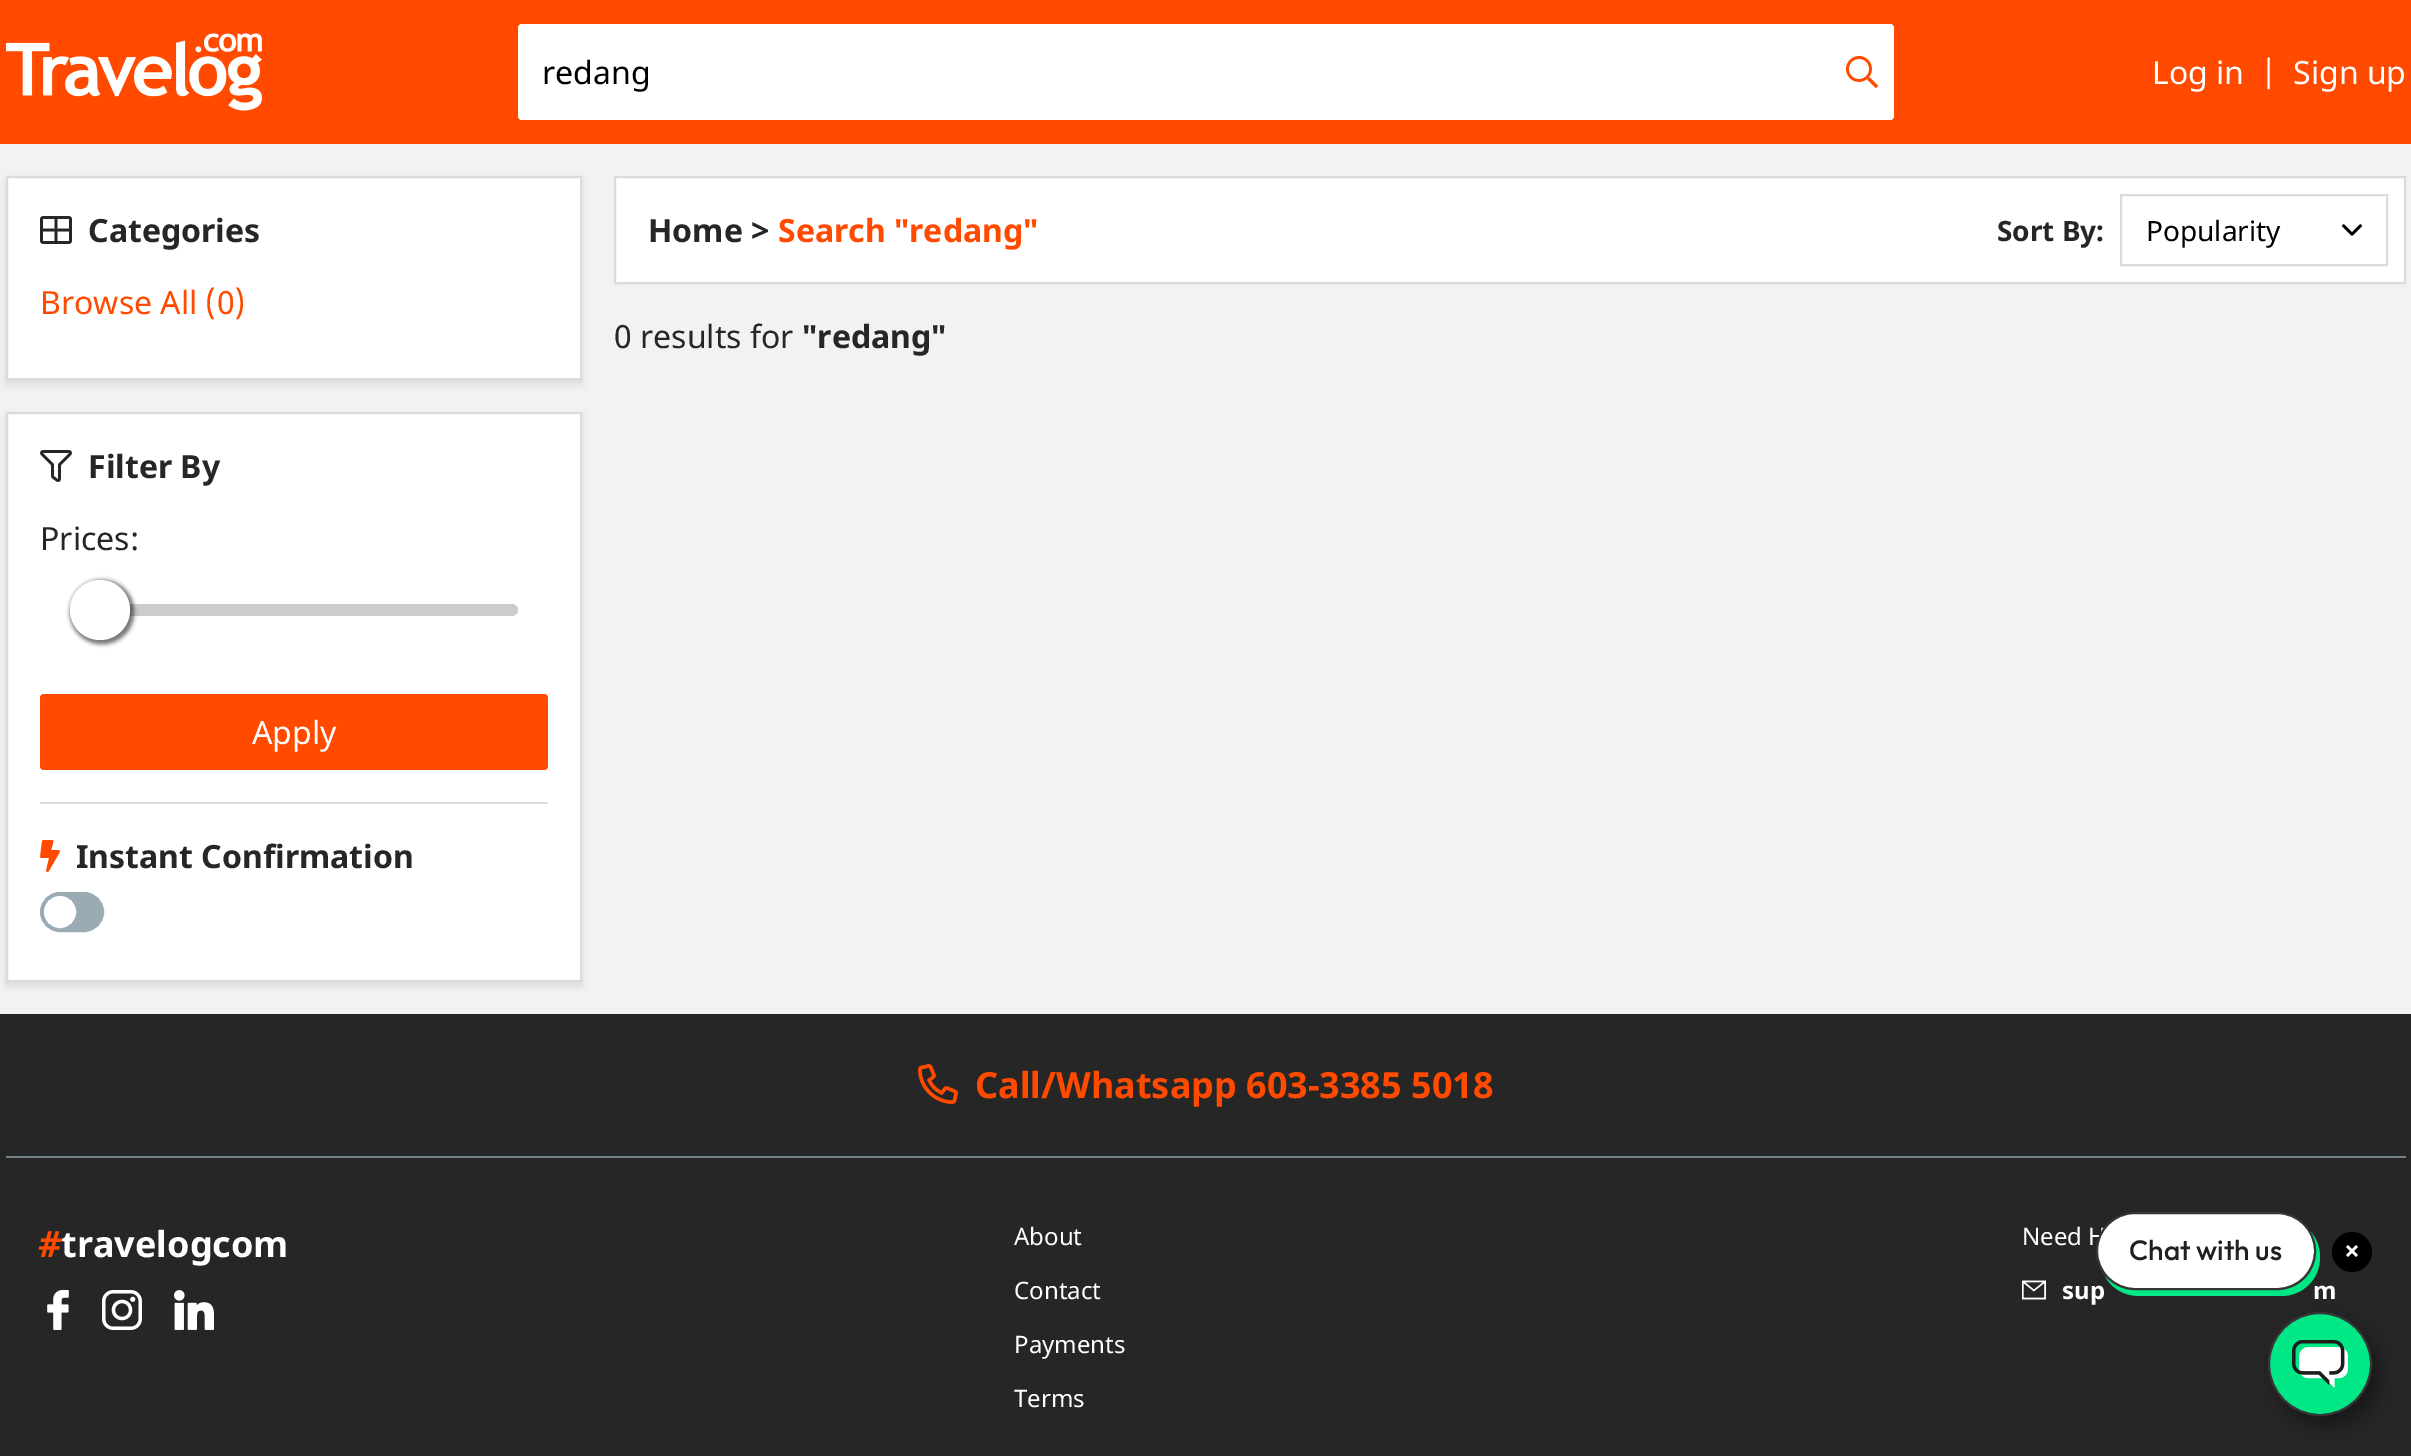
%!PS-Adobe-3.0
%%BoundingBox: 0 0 2411 1456
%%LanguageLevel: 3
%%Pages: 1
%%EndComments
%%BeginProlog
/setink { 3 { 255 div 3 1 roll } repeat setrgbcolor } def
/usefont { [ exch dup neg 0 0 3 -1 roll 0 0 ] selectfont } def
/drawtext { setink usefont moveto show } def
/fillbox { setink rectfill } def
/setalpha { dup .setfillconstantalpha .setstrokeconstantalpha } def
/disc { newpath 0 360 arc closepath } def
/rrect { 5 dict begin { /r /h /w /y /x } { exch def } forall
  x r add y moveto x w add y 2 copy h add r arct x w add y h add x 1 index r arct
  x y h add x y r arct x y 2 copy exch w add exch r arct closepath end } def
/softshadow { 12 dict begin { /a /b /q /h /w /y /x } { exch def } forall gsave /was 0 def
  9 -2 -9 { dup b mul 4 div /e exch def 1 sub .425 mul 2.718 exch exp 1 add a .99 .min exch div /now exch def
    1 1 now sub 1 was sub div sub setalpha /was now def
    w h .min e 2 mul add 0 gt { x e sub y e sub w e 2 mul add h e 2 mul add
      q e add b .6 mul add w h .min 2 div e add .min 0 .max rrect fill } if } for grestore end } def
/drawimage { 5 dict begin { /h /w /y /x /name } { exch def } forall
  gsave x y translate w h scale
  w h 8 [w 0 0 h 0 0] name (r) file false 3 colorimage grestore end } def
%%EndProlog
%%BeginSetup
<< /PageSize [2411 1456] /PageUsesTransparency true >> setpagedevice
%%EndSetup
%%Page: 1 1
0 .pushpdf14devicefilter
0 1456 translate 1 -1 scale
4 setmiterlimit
0 0 2411 1456 242 242 242 fillbox
0 0 2411 144 255 74 0 fillbox
(assets/img1.rgb) 6 33 256 78 drawimage
255 255 255 setink
518 24 1376 96 4 rrect fill
(redang) 542 84 /NotoSans-Regular 32 0 0 0 drawtext
(assets/img2.rgb) 1846 56 32 32 drawimage
(Log in) 2152 84 /NotoSans-Regular 32 255 255 255 drawtext
(|) 2260 84 /NotoSans-Regular 32 255 255 255 drawtext
(Sign up) 2293 84 /NotoSans-Regular 32 255 255 255 drawtext
0 0 0 setink
6 180 576 204 0 4 0.1 softshadow
255 255 255 setink
7 177 moveto 581 177 lineto 581 379 lineto 7 379 lineto closepath gsave fill grestore
219 219 221 setink
2 setlinewidth
stroke
(assets/img3.rgb) 40 216 32 28 drawimage
(Categories) 88 242 /NotoSans-Bold 32 38 38 38 drawtext
(Browse All \(0\)) 40 314 /NotoSans-Regular 32 255 74 0 drawtext
0 0 0 setink
6 416 576 570 0 4 0.1 softshadow
255 255 255 setink
7 413 moveto 581 413 lineto 581 981 lineto 7 981 lineto closepath gsave fill grestore
219 219 221 setink
stroke
(assets/img4.rgb) 40 450 32 32 drawimage
(Filter By) 88 478 /NotoSans-Bold 32 38 38 38 drawtext
40 802 508 2 219 219 221 fillbox
(Prices:) 40 550 /NotoSans-Regular 32 38 38 38 drawtext
204 204 204 setink
70 604 448 12 6 rrect fill
0 0 0 setink
70 580 64 64 32 2 0.32 softshadow
70 580 64 64 32 2 0.32 softshadow
255 255 255 setink
100 610 30 disc fill
255 74 0 setink
40 694 508 76 4 rrect fill
(Apply) 252 744 /NotoSans-Regular 32 255 255 255 drawtext
(assets/img5.rgb) 40 840 20 32 drawimage
(Instant Confirmation) 76 868 /NotoSans-Bold 32 38 38 38 drawtext
155 171 180 setink
41 893 62 38 19 rrect gsave fill grestore
stroke
255 255 255 setink
60 912 15 disc gsave fill grestore
stroke
615 177 moveto 2405 177 lineto 2405 283 lineto 615 283 lineto closepath gsave fill grestore
219 219 221 setink
stroke
(Home >) 648 242 /NotoSans-Bold 32 38 38 38 drawtext
(Search "redang") 778 242 /NotoSans-Bold 32 255 74 0 drawtext
(Sort By:) 1997 241 /NotoSans-Bold 28 38 38 38 drawtext
(assets/img6.rgb) 2342 224 20 12 drawimage
219 219 221 setink
2121 195 266 70 rectstroke
(Popularity) 2146 241 /NotoSans-Regular 28 0 0 0 drawtext
(0 results for) 614 348 /NotoSans-Regular 32 38 38 38 drawtext
("redang") 802 348 /NotoSans-Bold 32 38 38 38 drawtext
0 1014 2411 442 38 38 38 fillbox
6 1156 2400 2 112 129 138 fillbox
(assets/img7.rgb) 918 1064 40 40 drawimage
(Call/Whatsapp 603-3385 5018) 975 1098 /NotoSans-Bold 36 255 74 0 drawtext
(#) 38 1257 /NotoSans-BoldItalic 36 255 74 0 drawtext
(travelogcom) 61 1257 /NotoSans-Bold 36 255 255 255 drawtext
(assets/img8.rgb) 47 1290 22 40 drawimage
(assets/img9.rgb) 102 1290 40 40 drawimage
(assets/img10.rgb) 174 1290 40 40 drawimage
(About) 1014 1245 /NotoSans-Regular 24 255 255 255 drawtext
(Contact) 1014 1299 /NotoSans-Regular 24 255 255 255 drawtext
(Payments) 1014 1353 /NotoSans-Regular 24 255 255 255 drawtext
(Terms) 1014 1407 /NotoSans-Regular 24 255 255 255 drawtext
(Need H) 2022 1245 /NotoSans-Regular 24 255 255 255 drawtext
(assets/img11.rgb) 2022 1280 24 20 drawimage
(sup) 2062 1299 /NotoSans-Bold 24 255 255 255 drawtext
(m) 2313 1299 /NotoSans-Bold 24 255 255 255 drawtext
0 0 0 setink
2276 1322 104 104 52 10 0.4 softshadow
0 231 133 setink
2105 1276 moveto 2111 1288 2124 1296 2139 1296 curveto 2281 1296 lineto 2303 1296 2320 1279 2320 1257 curveto 2320 1248 2317 1239 2311 1232 curveto 2314 1238 2316 1244 2316 1251 curveto 2316 1273 2299 1290 2277 1290 curveto 2135 1290 lineto 2123 1290 2112 1284 2105 1276 curveto closepath fill
255 255 255 setink
2097 1213 218 76 38 rrect gsave fill grestore
54 54 54 setink
stroke
(Chat with us) 2129 1260 /Outfit-Medium 28 32 32 32 drawtext
0 0 0 setink
2352 1252 20 disc fill
255 255 255 setink
2.7 setlinewidth
2347 1246 moveto 2357 1256 lineto 2347 1256 moveto 2357 1246 lineto stroke
0 231 133 setink
2320 1364 51 disc gsave fill grestore
54 54 54 setink
2 setlinewidth
stroke
(assets/img12.rgb) 2292 1340 56 48 drawimage
.poppdf14devicefilter showpage
%%EOF
